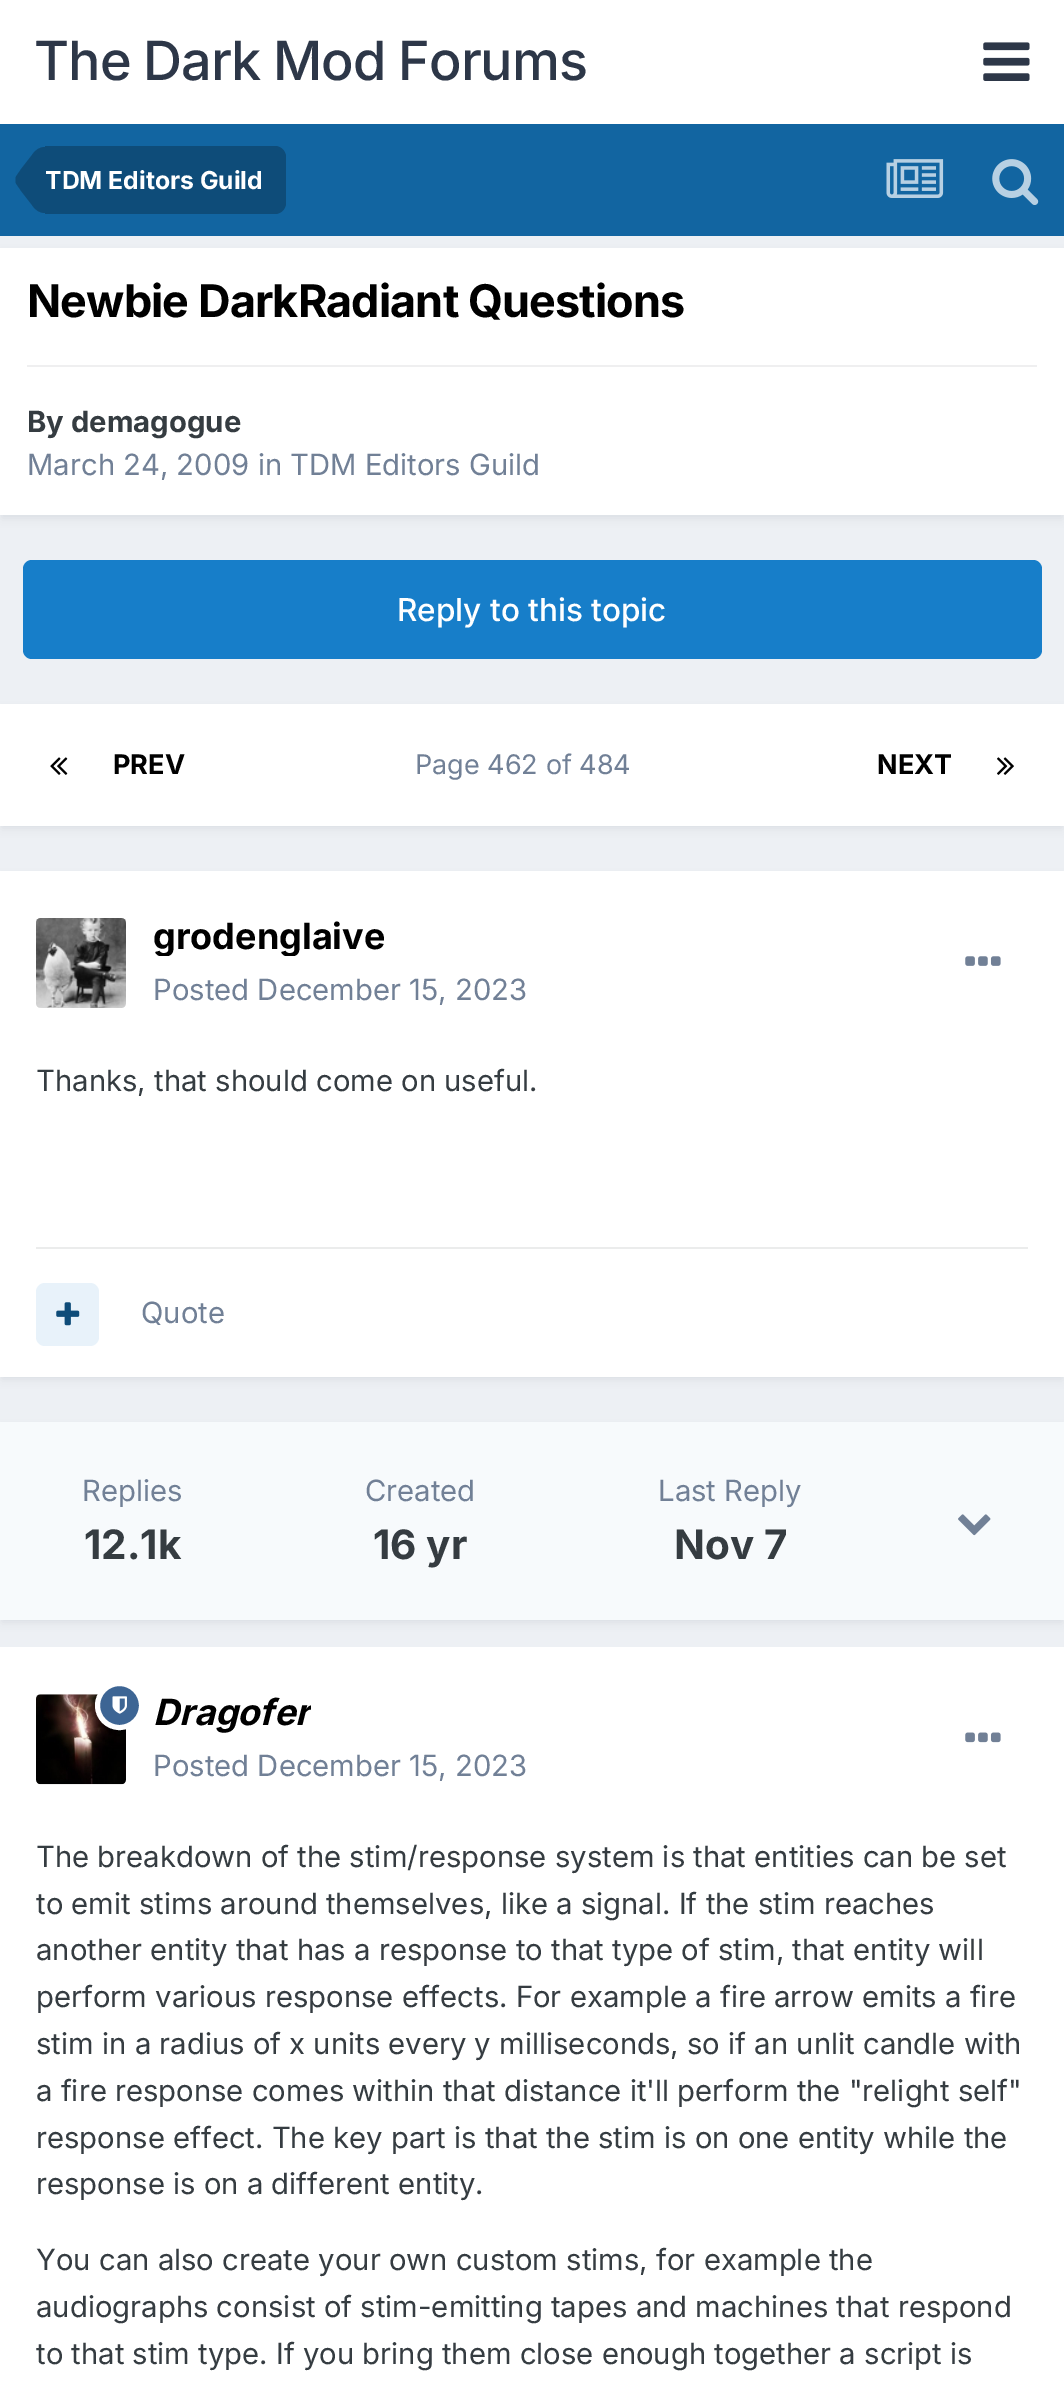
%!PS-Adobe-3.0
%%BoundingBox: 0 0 1064 2381
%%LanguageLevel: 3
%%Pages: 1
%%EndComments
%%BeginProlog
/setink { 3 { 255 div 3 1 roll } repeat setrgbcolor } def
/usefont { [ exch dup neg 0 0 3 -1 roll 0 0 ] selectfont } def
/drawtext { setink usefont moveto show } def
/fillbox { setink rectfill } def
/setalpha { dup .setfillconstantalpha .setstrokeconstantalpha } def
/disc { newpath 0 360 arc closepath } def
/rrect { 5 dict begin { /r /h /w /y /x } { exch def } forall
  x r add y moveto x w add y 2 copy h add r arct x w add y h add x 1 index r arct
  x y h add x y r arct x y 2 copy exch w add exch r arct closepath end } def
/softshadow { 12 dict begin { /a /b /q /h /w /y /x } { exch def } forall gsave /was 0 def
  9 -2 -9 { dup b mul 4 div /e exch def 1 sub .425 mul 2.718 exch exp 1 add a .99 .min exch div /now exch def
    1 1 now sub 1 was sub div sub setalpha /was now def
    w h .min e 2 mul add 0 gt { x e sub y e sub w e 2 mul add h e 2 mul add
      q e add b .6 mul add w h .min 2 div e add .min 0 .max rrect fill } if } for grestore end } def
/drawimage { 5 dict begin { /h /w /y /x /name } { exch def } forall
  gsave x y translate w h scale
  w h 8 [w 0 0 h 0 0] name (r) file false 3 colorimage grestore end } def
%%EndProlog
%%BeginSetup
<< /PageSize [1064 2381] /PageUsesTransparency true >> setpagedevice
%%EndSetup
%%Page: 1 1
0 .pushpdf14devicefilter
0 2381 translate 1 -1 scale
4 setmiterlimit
0 0 1064 2381 237 240 244 fillbox
0 0 1064 124 255 255 255 fillbox
/Inter-Medium 54 usefont
45 55 72 setink
34 80 moveto -1.1 0 (The Dark Mod Forums) ashow
(assets/img1.rgb) 983 42 47 39 drawimage
0 124 1064 112 18 101 161 fillbox
14 76 121 setink
45 146 moveto 275 146 lineto 281 146 286 151 286 157 curveto 286 203 lineto 286 209 281 214 275 214 curveto 45 214 lineto closepath fill
45 180 moveto 45 213 lineto 40 213 35.5 210.5 32 205 curveto 21.5 191.5 lineto 16 183.5 lineto 15.5 182 15.5 181 15.5 180 curveto closepath fill
45 180 moveto 15.5 180 lineto 15.5 179 15.5 178 16 176.5 curveto 21.5 168.5 lineto 32 155 lineto 35.5 149.5 40 147 45 147 curveto closepath fill
(TDM Editors Guild) 45 189 /Inter-Bold 24.75 255 255 255 drawtext
(assets/img2.rgb) 886 159 58 39 drawimage
(assets/img3.rgb) 992 159 47 46 drawimage
45 55 72 setink
2 254 1060 264 0 4.5 0.1 softshadow
0 248 1064 267 255 255 255 fillbox
/Inter-Bold 45 usefont
0 0 0 setink
27 317 moveto -0.9 0 (Newbie DarkRadiant Questions) ashow
27 365 1010 2 239 239 240 fillbox
(By demagogue) 27 432 /Inter-Bold 29.25 53 60 65 drawtext
(March 24, 2009 in TDM Editors Guild) 27 475 /Inter-Regular 29.25 113 128 150 drawtext
23 126 201 setink
23 560 1019 99 9 rrect fill
(Reply to this topic) 397 621 /Inter-Medium 31.5 255 255 255 drawtext
45 55 72 setink
2 711 1060 117 0 4.5 0.1 softshadow
0 704 1064 122 255 255 255 fillbox
(assets/img4.rgb) 50 757 18 18 drawimage
(PREV) 113 774 /Inter-Bold 27 0 0 0 drawtext
(Page 462 of 484) 415 774 /Inter-Regular 27 113 128 150 drawtext
(NEXT) 877 774 /Inter-Bold 27 0 0 0 drawtext
(assets/img5.rgb) 997 757 17 18 drawimage
45 55 72 setink
2 878 1060 501 0 4.5 0.1 softshadow
0 871 1064 506 255 255 255 fillbox
(assets/img6.rgb) 36 918 90 90 drawimage
gsave
153 916 232 40 rectclip
(grodenglaive) 153 949 /Inter-Bold 36 0 0 0 drawtext
grestore
(Posted December 15, 2023) 153 1000 /Inter-Regular 29.25 113 128 150 drawtext
(assets/img7.rgb) 965 956 36 10 drawimage
(Thanks, that should come on useful.) 36 1091 /Inter-Regular 29.25 53 60 65 drawtext
36 1247 992 2 235 236 236 fillbox
232 242 250 setink
36 1283 63 63 9 rrect fill
(assets/img8.rgb) 56 1302 24 24 drawimage
(Quote) 141 1323 /Inter-Regular 29.25 113 128 150 drawtext
45 55 72 setink
2 1429 1060 193 0 4.5 0.1 softshadow
0 1422 1064 198 247 250 252 fillbox
(Replies) 82 1501 /Inter-Regular 29.25 113 128 150 drawtext
(12.1k) 84 1559 /Inter-Bold 40.5 53 60 65 drawtext
(Created) 365 1501 /Inter-Regular 29.25 113 128 150 drawtext
(16 yr) 373 1559 /Inter-Bold 40.5 53 60 65 drawtext
(Last Reply) 658 1501 /Inter-Regular 29.25 113 128 150 drawtext
(Nov 7) 674 1559 /Inter-Bold 40.5 53 60 65 drawtext
(assets/img9.rgb) 958 1514 33 22 drawimage
0 1647 1064 734 255 255 255 fillbox
(assets/img11.rgb) 36 1694 90 91 drawimage
61 101 148 setink
119.5 1705.5 22 disc gsave fill grestore
255 255 255 setink
5 setlinewidth
stroke
(assets/img10.rgb) 112 1696 15 18 drawimage
gsave
153 1692 158 41 rectclip
(Dragofer) 153 1725 /Inter-BoldItalic 36 0 0 0 drawtext
grestore
(Posted December 15, 2023) 153 1776 /Inter-Regular 29.25 113 128 150 drawtext
(assets/img12.rgb) 965 1732 36 11 drawimage
(The breakdown of the stim/response system is that entities can be set) 36 1867 /Inter-Regular 29.25 53 60 65 drawtext
(to emit stims around themselves, like a signal. If the stim reaches) 36 1914 /Inter-Regular 29.25 53 60 65 drawtext
(another entity that has a response to that type of stim, that entity will) 36 1960 /Inter-Regular 29.25 53 60 65 drawtext
(perform various response effects. For example a fire arrow emits a fire) 36 2007 /Inter-Regular 29.25 53 60 65 drawtext
(stim in a radius of x units every y milliseconds, so if an unlit candle with) 36 2054 /Inter-Regular 29.25 53 60 65 drawtext
(a fire response comes within that distance it'll perform the "relight self") 36 2101 /Inter-Regular 29.25 53 60 65 drawtext
(response effect. The key part is that the stim is on one entity while the) 36 2148 /Inter-Regular 29.25 53 60 65 drawtext
(response is on a different entity.) 36 2194 /Inter-Regular 29.25 53 60 65 drawtext
(You can also create your own custom stims, for example the) 36 2270 /Inter-Regular 29.25 53 60 65 drawtext
(audiographs consist of stim-emitting tapes and machines that respond) 36 2317 /Inter-Regular 29.25 53 60 65 drawtext
(to that stim type. If you bring them close enough together a script is) 36 2364 /Inter-Regular 29.25 53 60 65 drawtext
.poppdf14devicefilter showpage
%%EOF
